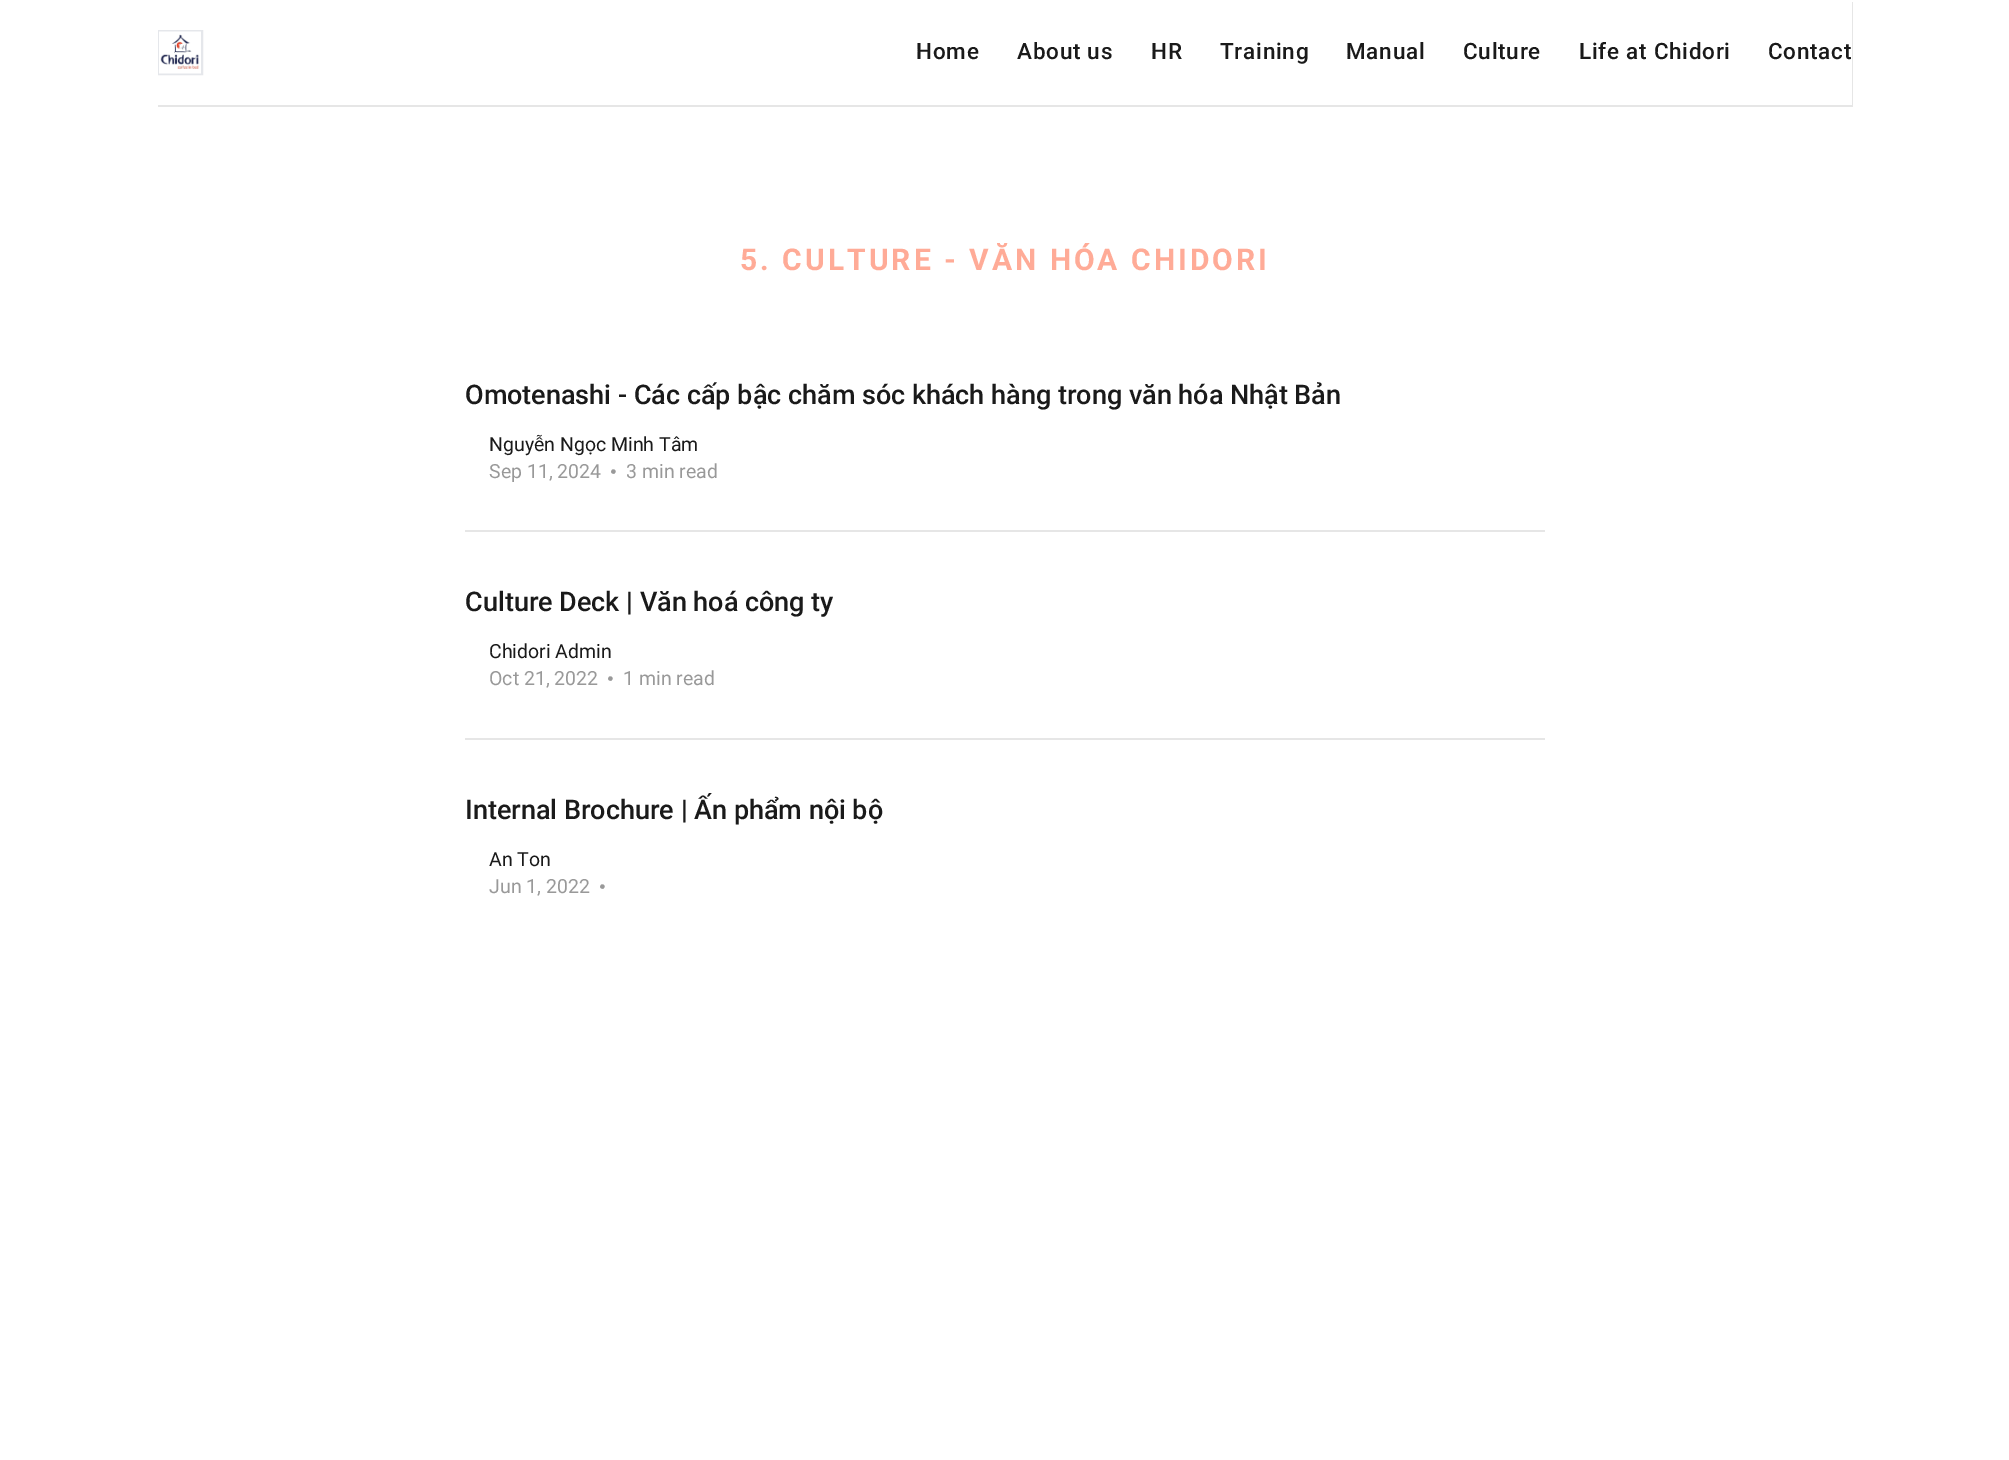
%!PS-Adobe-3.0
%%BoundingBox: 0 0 2009 1460
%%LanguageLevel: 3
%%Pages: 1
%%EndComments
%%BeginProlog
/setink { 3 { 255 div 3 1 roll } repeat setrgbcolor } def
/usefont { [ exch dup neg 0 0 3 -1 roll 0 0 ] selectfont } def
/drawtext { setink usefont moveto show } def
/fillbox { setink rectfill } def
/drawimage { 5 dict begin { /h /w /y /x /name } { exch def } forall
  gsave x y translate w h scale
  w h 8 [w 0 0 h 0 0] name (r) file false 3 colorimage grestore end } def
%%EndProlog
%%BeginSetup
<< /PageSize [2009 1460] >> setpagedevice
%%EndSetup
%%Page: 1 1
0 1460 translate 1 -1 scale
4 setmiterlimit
0 0 2009 1460 255 255 255 fillbox
230 230 230 setink
158 105 moveto 158 107 lineto 1853 107 lineto 1853 2 lineto 1852 2 lineto 1852 105 lineto closepath fill
229 231 235 setink
2 setlinewidth
159 31 43 43 rectstroke
(assets/img1.rgb) 159 31 42 43 drawimage
/Roboto-Medium 22.5 usefont
26 26 26 setink
916 59 moveto 0.75 0 (Home) ashow
1017 59 moveto 0.75 0 (About us) ashow
1151 59 moveto 0.75 0 (HR) ashow
1220 59 moveto 0.75 0 (Training) ashow
1346 59 moveto 0.75 0 (Manual) ashow
1463 59 moveto 0.75 0 (Culture) ashow
1579 59 moveto 0.75 0 (Life at Chidori) ashow
1768 59 moveto 0.75 0 (Contact) ashow
/Roboto-Bold 30 usefont
255 171 151 setink
740 270 moveto 3 0 (5. CULTURE - VĂN HÓA CHIDORI) ashow
(Omotenashi - Các cấp bậc chăm sóc khách hàng trong văn hóa Nhật Bản) 465 404 /Roboto-Medium 27 26 26 26 drawtext
(Nguyễn Ngọc Minh Tâm) 489 451 /Roboto-Regular 19.5 26 26 26 drawtext
(Sep 11, 2024) 489 478 /Roboto-Regular 19.5 153 153 153 drawtext
(•) 610 478 /LiberationSerif-Regular 19.5 153 153 153 drawtext
(3 min read) 626 478 /Roboto-Regular 19.5 153 153 153 drawtext
465 530 1080 2 230 230 230 fillbox
(Culture Deck | Văn hoá công ty) 465 611 /Roboto-Medium 27 26 26 26 drawtext
(Chidori Admin) 489 658 /Roboto-Regular 19.5 26 26 26 drawtext
(Oct 21, 2022) 489 685 /Roboto-Regular 19.5 153 153 153 drawtext
(•) 607 685 /LiberationSerif-Regular 19.5 153 153 153 drawtext
(1 min read) 623 685 /Roboto-Regular 19.5 153 153 153 drawtext
465 738 1080 2 230 230 230 fillbox
(Internal Brochure | Ấn phẩm nội bộ) 465 819 /Roboto-Medium 27 26 26 26 drawtext
(An Ton) 489 866 /Roboto-Regular 19.5 26 26 26 drawtext
(Jun 1, 2022) 489 893 /Roboto-Regular 19.5 153 153 153 drawtext
(•) 599 893 /LiberationSerif-Regular 19.5 153 153 153 drawtext
showpage
%%EOF
